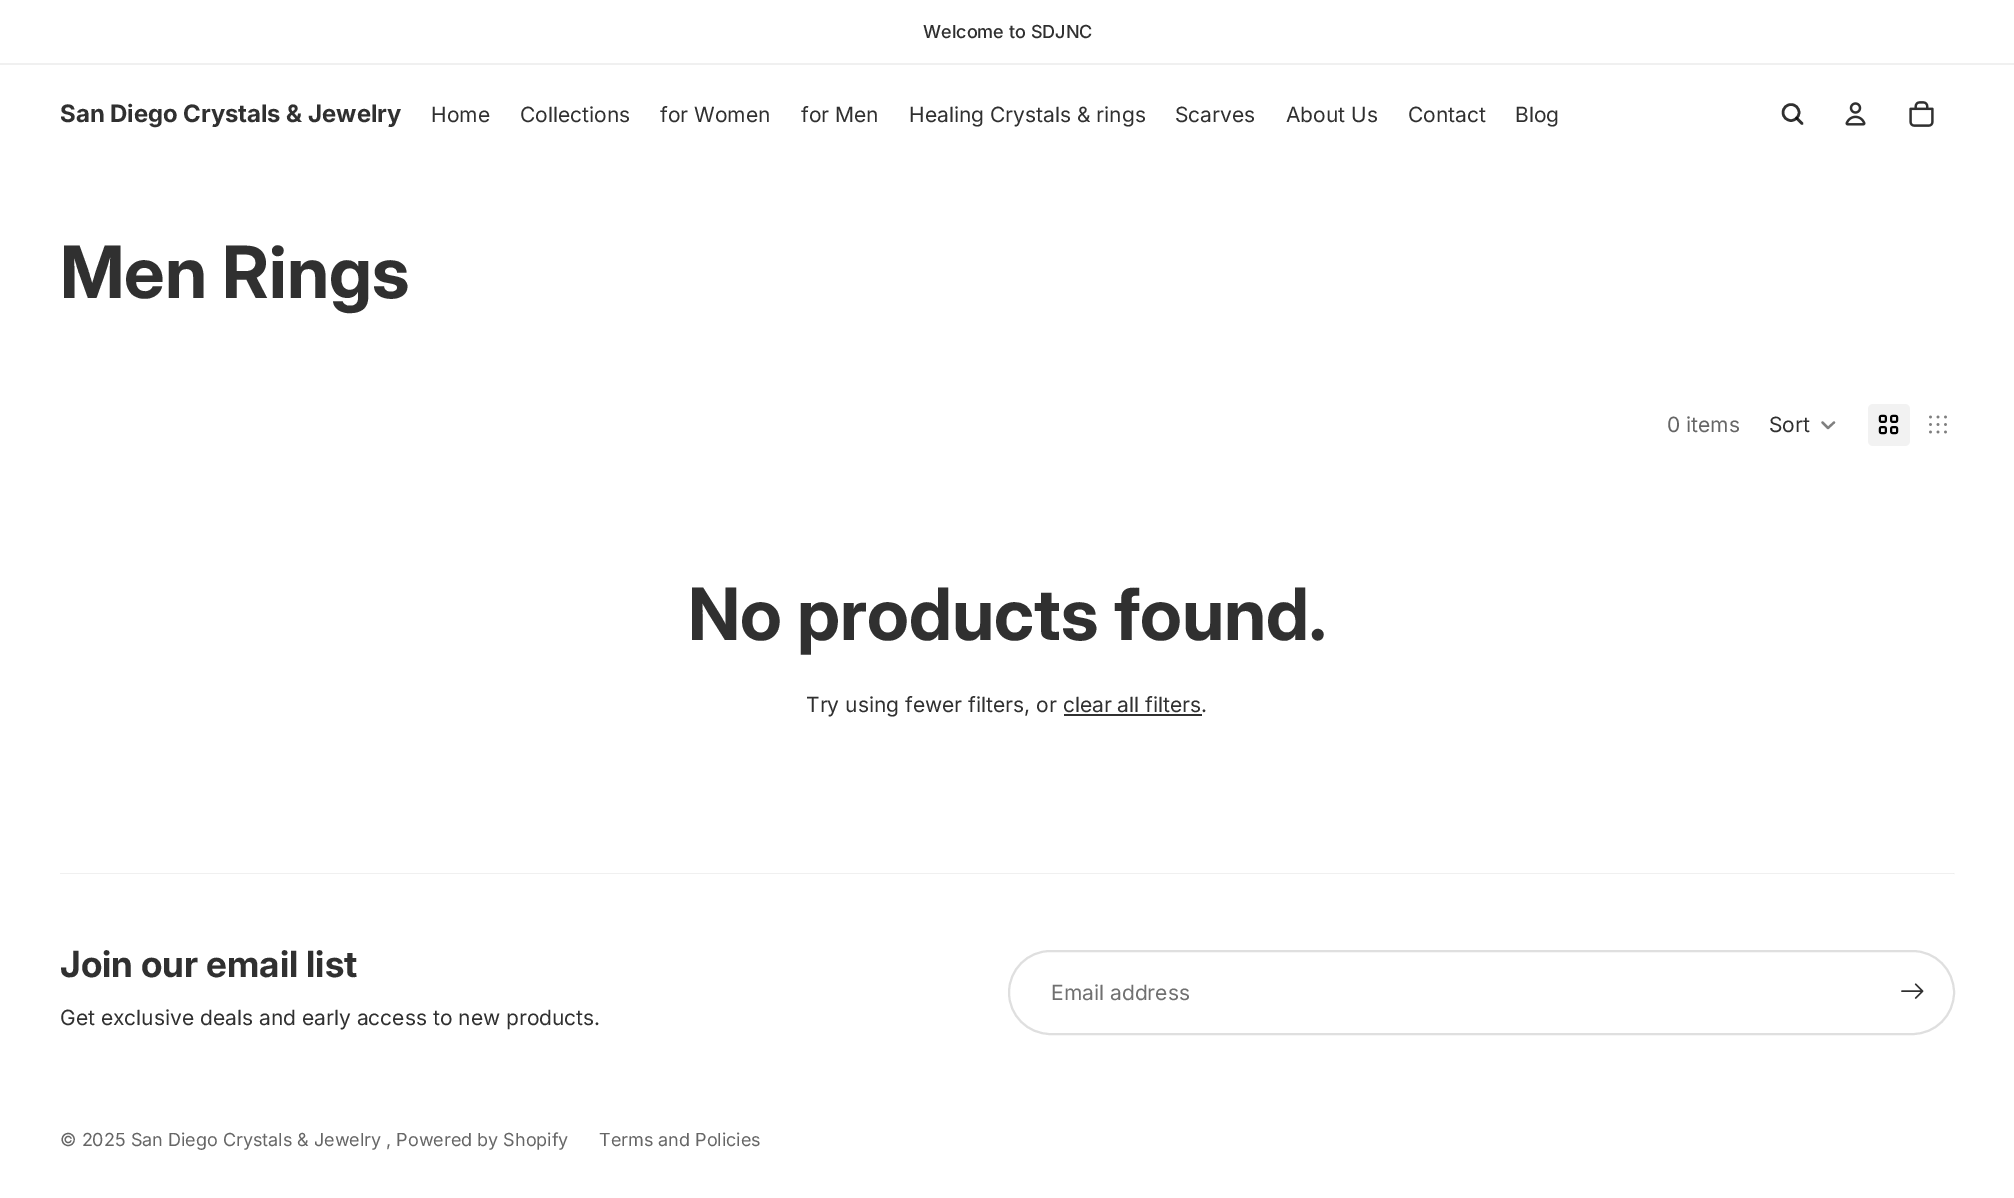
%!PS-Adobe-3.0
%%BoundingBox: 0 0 2014 1198
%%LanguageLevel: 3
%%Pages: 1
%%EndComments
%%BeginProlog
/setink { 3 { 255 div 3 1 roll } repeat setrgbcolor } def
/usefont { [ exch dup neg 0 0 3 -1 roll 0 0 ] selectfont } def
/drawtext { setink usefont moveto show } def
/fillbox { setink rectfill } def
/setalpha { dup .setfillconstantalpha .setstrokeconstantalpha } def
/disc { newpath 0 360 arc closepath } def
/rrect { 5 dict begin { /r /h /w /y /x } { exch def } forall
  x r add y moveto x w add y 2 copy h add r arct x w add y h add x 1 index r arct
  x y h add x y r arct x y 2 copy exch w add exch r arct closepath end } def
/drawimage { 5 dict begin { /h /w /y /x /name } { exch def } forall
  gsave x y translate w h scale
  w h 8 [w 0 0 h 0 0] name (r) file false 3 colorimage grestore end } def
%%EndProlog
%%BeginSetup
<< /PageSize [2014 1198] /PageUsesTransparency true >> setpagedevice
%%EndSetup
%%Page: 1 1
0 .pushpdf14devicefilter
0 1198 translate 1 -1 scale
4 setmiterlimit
0 0 2014 1198 255 255 255 fillbox
0 63 2014 2 240 240 240 fillbox
(Welcome to SDJNC) 923 38 /Inter-Medium 18 48 48 48 drawtext
(San Diego Crystals & Jewelry) 60 122 /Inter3-Bold 24 48 48 48 drawtext
(Home) 431 122 /Inter-Regular 21 48 48 48 drawtext
(Collections) 520 122 /Inter-Regular 21 48 48 48 drawtext
(for Women) 660 122 /Inter-Regular 21 48 48 48 drawtext
(for Men) 801 122 /Inter-Regular 21 48 48 48 drawtext
(Healing Crystals & rings) 909 122 /Inter-Regular 21 48 48 48 drawtext
(Scarves) 1175 122 /Inter-Regular 21 48 48 48 drawtext
(About Us) 1286 122 /Inter-Regular 21 48 48 48 drawtext
(Contact) 1408 122 /Inter-Regular 21 48 48 48 drawtext
(Blog) 1515 122 /Inter-Regular 21 48 48 48 drawtext
2.5 setlinewidth
1791 112.5 8 disc stroke
0.81 setalpha
0 0 0 setink
1 setlinecap
1 setlinejoin
1796.5 118 moveto 1802 123.5 lineto stroke
1 setalpha
(assets/img1.rgb) 1845 102 21 24 drawimage
(assets/img2.rgb) 1909 101 25 26 drawimage
(Men Rings) 60 298 /Inter-Bold 72 48 48 48 drawtext
(0 items) 1667 432 /Inter-Regular 21 102 102 102 drawtext
(Sort) 1769 432 /Inter-Regular 21 48 48 48 drawtext
128 128 128 setink
2.2 setlinewidth
1834 422.5 moveto 1828 428 lineto 1822.5 422.5 lineto stroke
242 242 242 setink
1868 404 42 42 5 rrect fill
(assets/img3.rgb) 1878 414 21 21 drawimage
(assets/img4.rgb) 1929 415 18 19 drawimage
(No products found.) 688 640 /Inter-Bold 72 48 48 48 drawtext
(Try using fewer filters, or clear all filters.) 806 712 /Inter-Regular 21 48 48 48 drawtext
1064 714 138 2 48 48 48 fillbox
240 240 240 setink
1954.5 873 moveto 1954.5 874.5 lineto 1953 873 lineto closepath fill
0.06 setalpha
0 0 0 setink
1954 874 moveto 60 874 lineto 60 873 lineto 1953 873 lineto closepath fill
1 setalpha
(Join our email list) 60 977 /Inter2-Bold 36 48 48 48 drawtext
(Get exclusive deals and early access to new products.) 60 1025 /Inter-Regular 21 48 48 48 drawtext
223 223 223 setink
2 setlinewidth
0 setlinecap
0 setlinejoin
1009 951 945 83 41.5 rrect stroke
(Email address) 1051 1000 /Inter-Regular 21 112 112 112 drawtext
(assets/img5.rgb) 1901 983 23 16 drawimage
(© 2025 San Diego Crystals & Jewelry , Powered by Shopify) 60 1146 /Inter-Regular 18 102 102 102 drawtext
(Terms and Policies) 599 1146 /Inter-Regular 18 102 102 102 drawtext
.poppdf14devicefilter showpage
%%EOF
